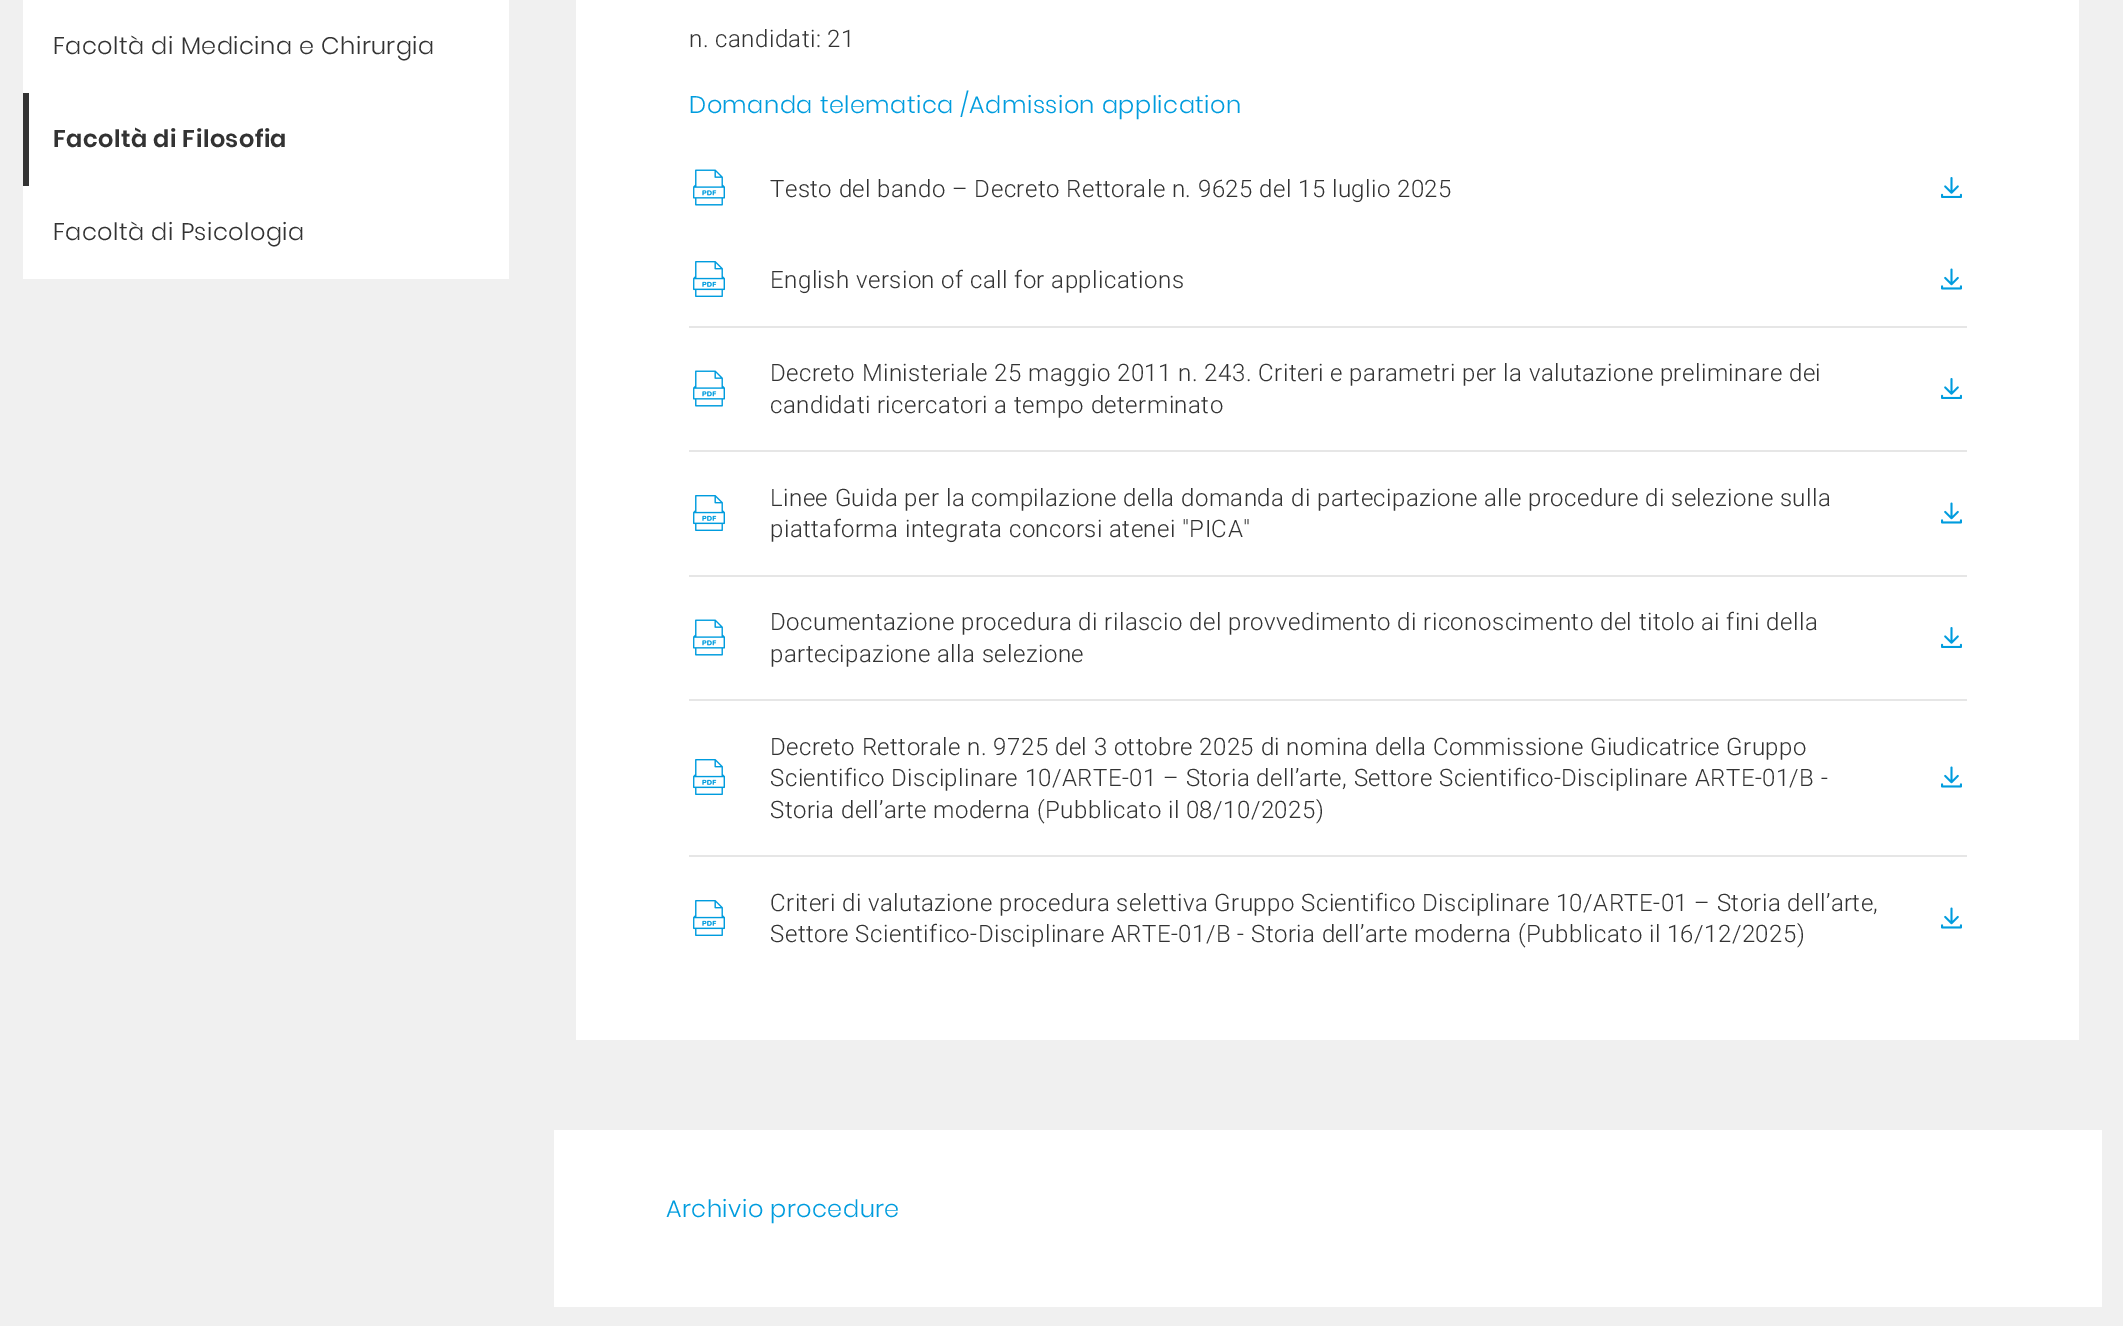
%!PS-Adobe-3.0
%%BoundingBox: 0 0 2123 1326
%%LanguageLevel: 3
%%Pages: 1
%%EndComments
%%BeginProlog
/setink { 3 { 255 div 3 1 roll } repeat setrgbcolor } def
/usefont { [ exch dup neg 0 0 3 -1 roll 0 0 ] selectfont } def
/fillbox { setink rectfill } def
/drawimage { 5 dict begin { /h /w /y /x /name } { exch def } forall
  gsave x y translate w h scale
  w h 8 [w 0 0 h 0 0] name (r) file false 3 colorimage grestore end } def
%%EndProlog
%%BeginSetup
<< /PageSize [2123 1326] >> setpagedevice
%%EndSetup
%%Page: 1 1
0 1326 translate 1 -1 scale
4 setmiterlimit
0 0 2123 1326 240 240 240 fillbox
23 0 486 93 255 255 255 fillbox
/Poppins-Light 24 usefont
51 51 51 setink
53 54 moveto 0.45 0 (Facoltà di Medicina e Chirurgia) ashow
29 93 480 93 255 255 255 fillbox
23 93 6 93 51 51 51 fillbox
/Poppins-SemiBold 24 usefont
53 147 moveto 0.45 0 (Facoltà di Filosofia) ashow
23 186 486 93 255 255 255 fillbox
/Poppins-Light 24 usefont
51 51 51 setink
53 240 moveto 0.45 0 (Facoltà di Psicologia) ashow
576 0 1503 1040 255 255 255 fillbox
/Roboto-Light 24 usefont
51 51 51 setink
689 47 moveto 0.45 0 (n. candidati: 21) ashow
/Poppins-Light 24 usefont
0 156 222 setink
689 113 moveto 0.45 0 (Domanda telematica) ashow
960 113 moveto 0.45 0 (/Admission application) ashow
(assets/img1.rgb) 693 169 32 37 drawimage
/Roboto-Light 24 usefont
51 51 51 setink
770 197 moveto 0.45 0 (Testo del bando – Decreto Rettorale n. 9625 del 15 luglio 2025) ashow
(assets/img2.rgb) 1941 177 21 21 drawimage
(assets/img3.rgb) 693 261 32 36 drawimage
770 288 moveto 0.45 0 (English version of call for applications) ashow
(assets/img4.rgb) 1941 268 21 22 drawimage
689 326 1278 2 230 230 230 fillbox
(assets/img1.rgb) 693 370 32 37 drawimage
51 51 51 setink
770 381 moveto 0.45 0 (Decreto Ministeriale 25 maggio 2011 n. 243. Criteri e parametri per la valutazione preliminare dei) ashow
(assets/img2.rgb) 1941 378 21 21 drawimage
770 413 moveto 0.45 0 (candidati ricercatori a tempo determinato) ashow
689 450 1278 2 230 230 230 fillbox
(assets/img3.rgb) 693 495 32 36 drawimage
51 51 51 setink
770 506 moveto 0.45 0 (Linee Guida per la compilazione della domanda di partecipazione alle procedure di selezione sulla) ashow
(assets/img4.rgb) 1941 502 21 22 drawimage
770 537 moveto 0.45 0 (piattaforma integrata concorsi atenei "PICA") ashow
689 575 1278 2 230 230 230 fillbox
(assets/img1.rgb) 693 619 32 37 drawimage
51 51 51 setink
770 630 moveto 0.45 0 (Documentazione procedura di rilascio del provvedimento di riconoscimento del titolo ai fini della) ashow
(assets/img2.rgb) 1941 627 21 21 drawimage
770 662 moveto 0.45 0 (partecipazione alla selezione) ashow
689 699 1278 2 230 230 230 fillbox
51 51 51 setink
770 755 moveto 0.45 0 (Decreto Rettorale n. 9725 del 3 ottobre 2025 di nomina della Commissione Giudicatrice Gruppo) ashow
(assets/img3.rgb) 693 759 32 36 drawimage
770 786 moveto 0.45 0 (Scientifico Disciplinare 10/ARTE-01 – Storia dell’arte, Settore Scientifico-Disciplinare ARTE-01/B -) ashow
(assets/img4.rgb) 1941 766 21 22 drawimage
770 818 moveto 0.45 0 (Storia dell’arte moderna \(Pubblicato il 08/10/2025\)) ashow
689 855 1278 2 230 230 230 fillbox
(assets/img3.rgb) 693 900 32 36 drawimage
51 51 51 setink
770 911 moveto 0.45 0 (Criteri di valutazione procedura selettiva Gruppo Scientifico Disciplinare 10/ARTE-01 – Storia dell’arte,) ashow
(assets/img4.rgb) 1941 907 21 22 drawimage
770 942 moveto 0.45 0 (Settore Scientifico-Disciplinare ARTE-01/B - Storia dell’arte moderna \(Pubblicato il 16/12/2025\)) ashow
554 1130 1548 177 255 255 255 fillbox
/Poppins-Light 24 usefont
0 156 222 setink
666 1217 moveto 0.45 0 (Archivio procedure) ashow
showpage
%%EOF
